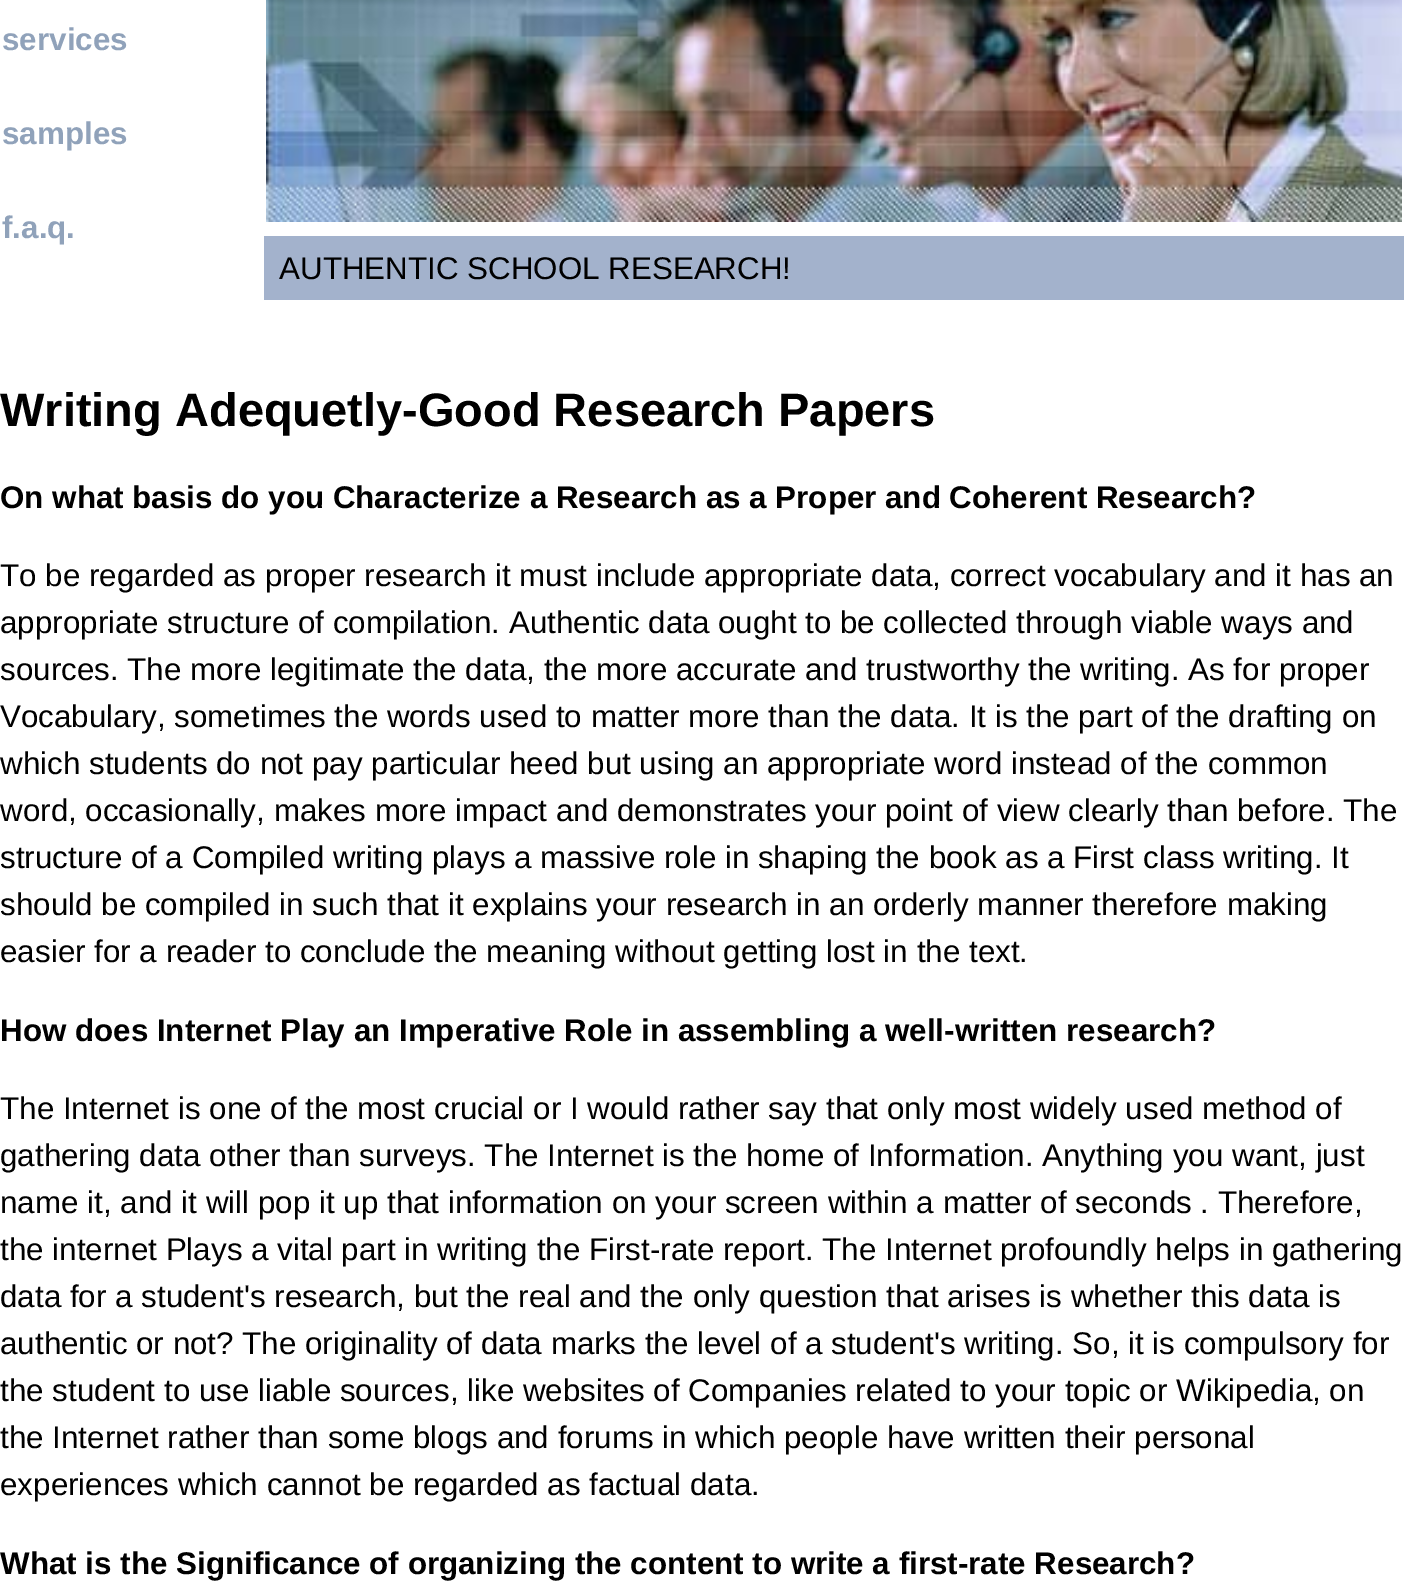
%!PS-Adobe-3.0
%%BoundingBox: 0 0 1406 1588
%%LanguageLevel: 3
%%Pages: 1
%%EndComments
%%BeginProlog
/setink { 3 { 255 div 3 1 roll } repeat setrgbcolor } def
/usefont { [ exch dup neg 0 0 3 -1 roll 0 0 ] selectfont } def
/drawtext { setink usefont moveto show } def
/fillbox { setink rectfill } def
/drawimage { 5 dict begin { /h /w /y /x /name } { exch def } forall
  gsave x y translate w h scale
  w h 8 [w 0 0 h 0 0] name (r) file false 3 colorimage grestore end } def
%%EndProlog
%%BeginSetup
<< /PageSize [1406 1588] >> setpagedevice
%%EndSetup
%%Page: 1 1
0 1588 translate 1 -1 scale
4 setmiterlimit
0 0 1406 1588 255 255 255 fillbox
(services) 2 50 /LiberationSans-Bold 31.35 144 162 186 drawtext
(samples) 2 144 /LiberationSans-Bold 31.35 144 162 186 drawtext
(f.a.q.) 2 238 /LiberationSans-Bold 31.35 144 162 186 drawtext
(assets/img1.rgb) 266 0 1136 222 drawimage
264 236 1140 64 163 178 204 fillbox
(AUTHENTIC SCHOOL RESEARCH!) 279 279 /LiberationSans-Regular 31.35 0 0 0 drawtext
(Writing Adequetly-Good Research Papers) 0 426 /LiberationSans-Bold 47 0 0 0 drawtext
(On what basis do you Characterize a Research as a Proper and Coherent Research?) 0 508 /LiberationSans-Bold 31.35 0 0 0 drawtext
(To be regarded as proper research it must include appropriate data, correct vocabulary and it has an) 0 586 /LiberationSans-Regular 31.35 0 0 0 drawtext
(appropriate structure of compilation. Authentic data ought to be collected through viable ways and) 0 633 /LiberationSans-Regular 31.35 0 0 0 drawtext
(sources. The more legitimate the data, the more accurate and trustworthy the writing. As for proper) 0 680 /LiberationSans-Regular 31.35 0 0 0 drawtext
(Vocabulary, sometimes the words used to matter more than the data. It is the part of the drafting on) 0 727 /LiberationSans-Regular 31.35 0 0 0 drawtext
(which students do not pay particular heed but using an appropriate word instead of the common) 0 774 /LiberationSans-Regular 31.35 0 0 0 drawtext
(word, occasionally, makes more impact and demonstrates your point of view clearly than before. The) 0 821 /LiberationSans-Regular 31.35 0 0 0 drawtext
(structure of a Compiled writing plays a massive role in shaping the book as a First class writing. It) 0 868 /LiberationSans-Regular 31.35 0 0 0 drawtext
(should be compiled in such that it explains your research in an orderly manner therefore making) 0 915 /LiberationSans-Regular 31.35 0 0 0 drawtext
(easier for a reader to conclude the meaning without getting lost in the text.) 0 962 /LiberationSans-Regular 31.35 0 0 0 drawtext
(How does Internet Play an Imperative Role in assembling a well-written research?) 0 1041 /LiberationSans-Bold 31.35 0 0 0 drawtext
(The Internet is one of the most crucial or I would rather say that only most widely used method of) 0 1119 /LiberationSans-Regular 31.35 0 0 0 drawtext
(gathering data other than surveys. The Internet is the home of Information. Anything you want, just) 0 1166 /LiberationSans-Regular 31.35 0 0 0 drawtext
(name it, and it will pop it up that information on your screen within a matter of seconds . Therefore,) 0 1213 /LiberationSans-Regular 31.35 0 0 0 drawtext
(the internet Plays a vital part in writing the First-rate report. The Internet profoundly helps in gathering) 0 1260 /LiberationSans-Regular 31.35 0 0 0 drawtext
(data for a student's research, but the real and the only question that arises is whether this data is) 0 1307 /LiberationSans-Regular 31.35 0 0 0 drawtext
(authentic or not? The originality of data marks the level of a student's writing. So, it is compulsory for) 0 1354 /LiberationSans-Regular 31.35 0 0 0 drawtext
(the student to use liable sources, like websites of Companies related to your topic or Wikipedia, on) 0 1401 /LiberationSans-Regular 31.35 0 0 0 drawtext
(the Internet rather than some blogs and forums in which people have written their personal) 0 1448 /LiberationSans-Regular 31.35 0 0 0 drawtext
(experiences which cannot be regarded as factual data.) 0 1495 /LiberationSans-Regular 31.35 0 0 0 drawtext
(What is the Significance of organizing the content to write a first-rate Research?) 0 1574 /LiberationSans-Bold 31.35 0 0 0 drawtext
showpage
%%EOF
